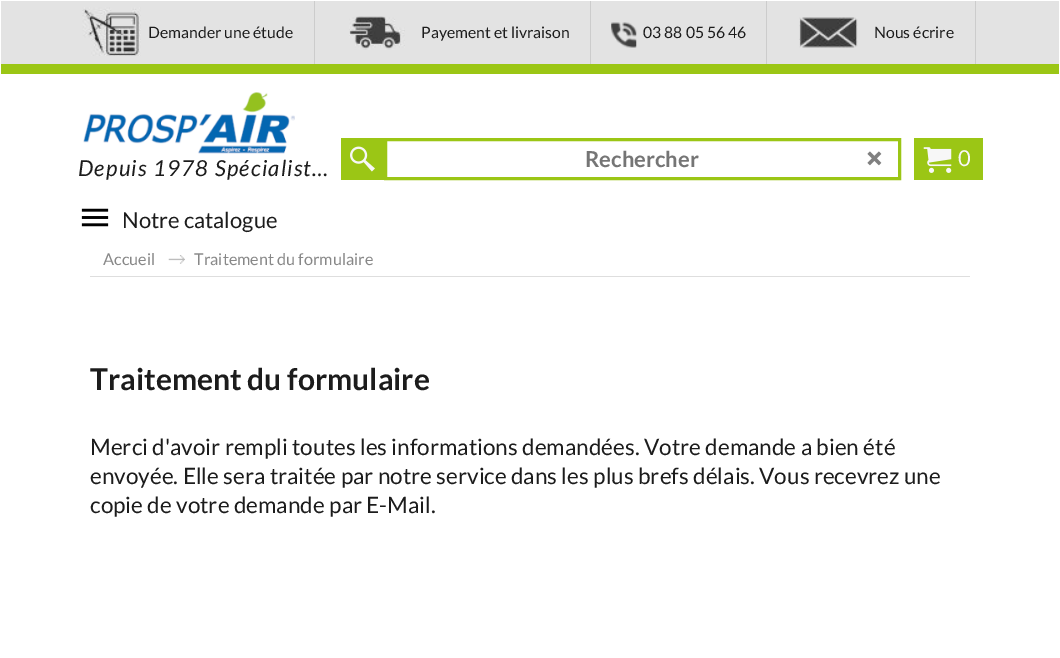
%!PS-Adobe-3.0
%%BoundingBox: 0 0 1060 658
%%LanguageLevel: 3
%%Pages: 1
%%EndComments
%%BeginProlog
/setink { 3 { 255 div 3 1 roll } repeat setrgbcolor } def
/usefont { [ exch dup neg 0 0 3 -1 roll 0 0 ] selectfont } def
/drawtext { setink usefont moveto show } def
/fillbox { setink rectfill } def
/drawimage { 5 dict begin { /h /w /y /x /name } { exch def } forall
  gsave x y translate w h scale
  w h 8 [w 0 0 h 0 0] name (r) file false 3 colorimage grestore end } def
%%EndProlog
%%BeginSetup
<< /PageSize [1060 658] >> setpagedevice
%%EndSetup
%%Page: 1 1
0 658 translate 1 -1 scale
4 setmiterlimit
0 0 1060 658 255 255 255 fillbox
1 1 1058 63 227 227 227 fillbox
314 1 1 63 204 204 204 fillbox
(assets/img1.rgb) 82 7 59 49 drawimage
(Demander une étude) 148 38 /Lato-Regular 15.75 28 28 28 drawtext
590 1 1 63 204 204 204 fillbox
(assets/img2.rgb) 349 16 56 34 drawimage
(Payement et livraison) 421 38 /Lato-Regular 15.75 28 28 28 drawtext
766 1 1 63 204 204 204 fillbox
(assets/img3.rgb) 611 22 26 26 drawimage
(03 88 05 56 46) 643 38 /Lato-Regular 15.75 28 28 28 drawtext
975 1 1 63 204 204 204 fillbox
(assets/img4.rgb) 799 17 59 31 drawimage
(Nous écrire) 874 38 /Lato-Regular 15.75 28 28 28 drawtext
1 64 1058 10 155 198 21 fillbox
(assets/img5.rgb) 83 92 212 62 drawimage
/Lato-Italic 22 usefont
28 28 28 setink
78 176 moveto 1.25 0 (Depuis 1978 Spécialist…) ashow
341 138 43 42 155 198 21 fillbox
(assets/img6.rgb) 350 146 25 26 drawimage
3 setlinewidth
385.5 139.5 514 39 rectstroke
(Rechercher) 585 167 /Lato-Bold 22 117 117 117 drawtext
(assets/img7.rgb) 867 151 15 15 drawimage
914 138 69 42 155 198 21 fillbox
(assets/img8.rgb) 923 147 29 26 drawimage
(0) 958 166 /Lato-Regular 22 247 247 247 drawtext
(assets/img9.rgb) 81 208 28 19 drawimage
(Notre catalogue) 122 228 /Lato-Regular 22 28 28 28 drawtext
90 276 880 1 222 222 222 fillbox
(Accueil) 103 265 /Lato-Regular 16.25 136 136 136 drawtext
(assets/img10.rgb) 168 255 17 9 drawimage
(Traitement du formulaire) 194 265 /Lato-Regular 16.25 136 136 136 drawtext
(Traitement du formulaire) 90 390 /Lato-Bold 30 28 28 28 drawtext
(Merci d'avoir rempli toutes les informations demandées. Votre demande a bien été) 90 455 /Lato-Regular 22.5 28 28 28 drawtext
(envoyée. Elle sera traitée par notre service dans les plus brefs délais. Vous recevrez une) 90 484 /Lato-Regular 22.5 28 28 28 drawtext
(copie de votre demande par E-Mail.) 90 513 /Lato-Regular 22.5 28 28 28 drawtext
showpage
%%EOF
